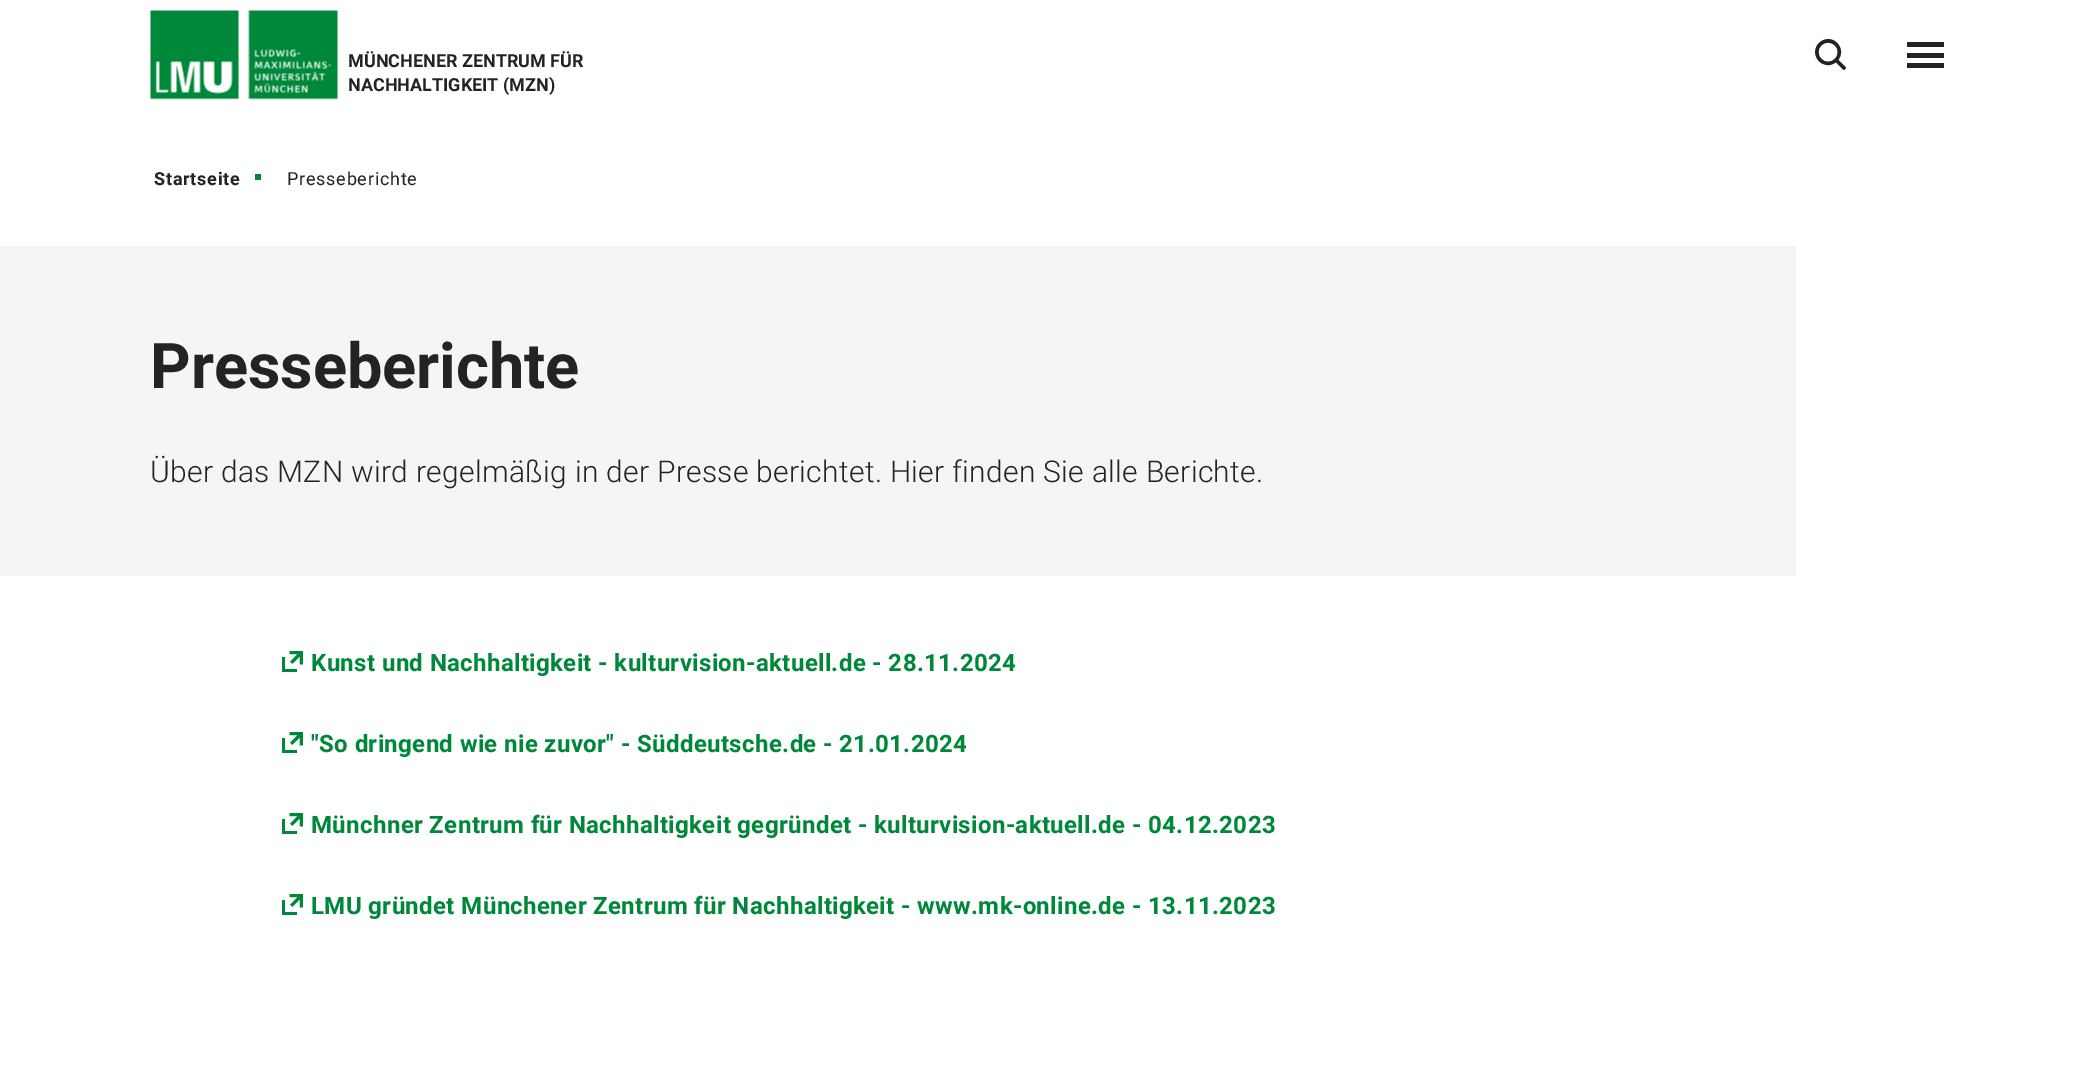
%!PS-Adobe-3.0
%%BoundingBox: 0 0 2093 1084
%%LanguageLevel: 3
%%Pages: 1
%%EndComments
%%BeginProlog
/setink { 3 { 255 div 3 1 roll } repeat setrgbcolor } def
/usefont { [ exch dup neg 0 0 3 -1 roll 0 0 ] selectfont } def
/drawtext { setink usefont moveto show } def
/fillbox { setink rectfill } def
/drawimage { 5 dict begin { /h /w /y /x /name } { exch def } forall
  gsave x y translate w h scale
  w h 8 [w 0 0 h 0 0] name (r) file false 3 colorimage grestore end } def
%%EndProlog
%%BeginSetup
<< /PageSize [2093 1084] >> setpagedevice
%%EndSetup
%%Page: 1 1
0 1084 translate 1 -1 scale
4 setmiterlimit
0 0 2093 1084 255 255 255 fillbox
(assets/img1.rgb) 150 10 188 90 drawimage
(MÜNCHENER ZENTRUM FÜR) 348 67 /Roboto-Bold 18 35 35 35 drawtext
(NACHHALTIGKEIT \(MZN\)) 348 91 /Roboto-Bold 18 35 35 35 drawtext
(assets/img2.rgb) 1815 39 32 32 drawimage
1907 42 37 5 35 35 35 fillbox
1907 53 37 5 35 35 35 fillbox
1907 63 37 5 35 35 35 fillbox
154 185 moveto 0.75 0 (Startseite) ashow
255 174 6 6 0 136 58 fillbox
/Roboto-Regular 18 usefont
35 35 35 setink
287 185 moveto 0.75 0 (Presseberichte) ashow
0 246 1796 330 245 245 245 fillbox
(Presseberichte) 150 388 /Roboto-Bold 63 35 35 35 drawtext
/Roboto-Light 30 usefont
150 482 moveto 0.3 0 (Über das MZN wird regelmäßig in der Presse berichtet. Hier finden Sie alle Berichte.) ashow
(assets/img3.rgb) 282 651 21 21 drawimage
/Roboto-Bold 24 usefont
0 136 58 setink
311 671 moveto 0.38 0 (Kunst und Nachhaltigkeit - kulturvision-aktuell.de - 28.11.2024) ashow
(assets/img3.rgb) 282 732 21 21 drawimage
311 752 moveto 0.38 0 ("So dringend wie nie zuvor" - Süddeutsche.de - 21.01.2024) ashow
(assets/img3.rgb) 282 813 21 21 drawimage
311 833 moveto 0.38 0 (Münchner Zentrum für Nachhaltigkeit gegründet - kulturvision-aktuell.de - 04.12.2023) ashow
(assets/img3.rgb) 282 894 21 21 drawimage
311 914 moveto 0.38 0 (LMU gründet Münchener Zentrum für Nachhaltigkeit - www.mk-online.de - 13.11.2023) ashow
showpage
%%EOF
